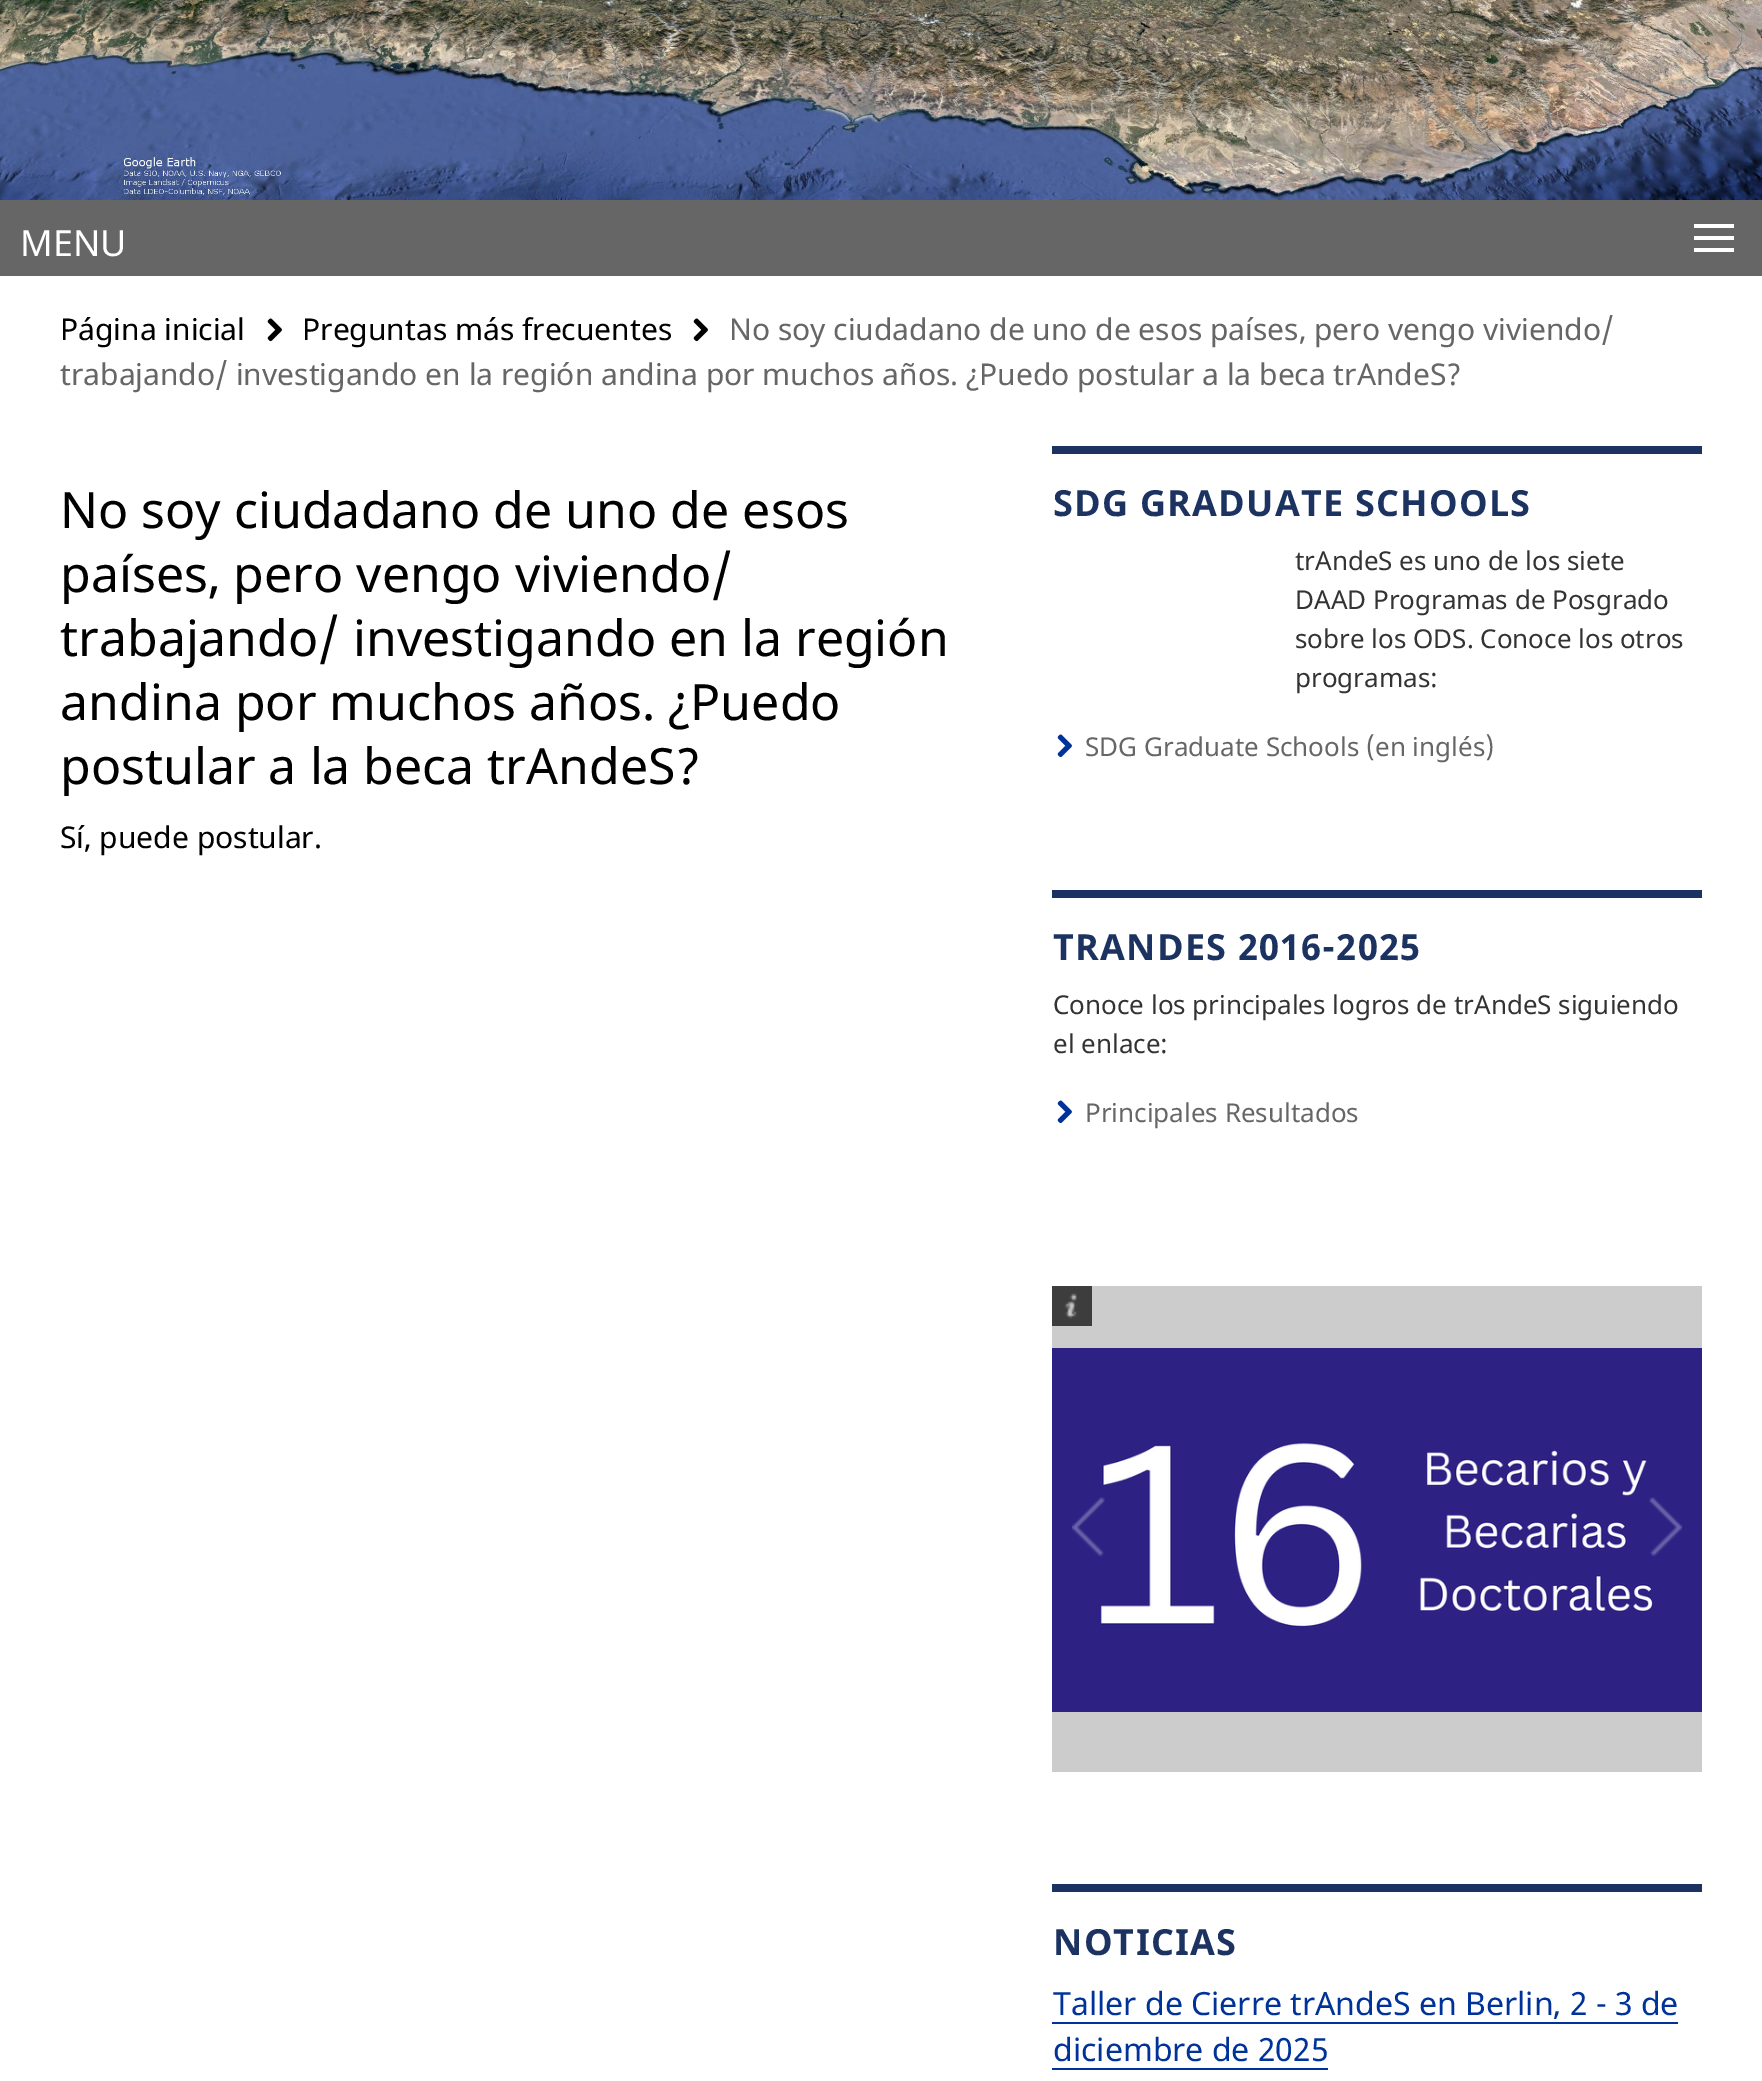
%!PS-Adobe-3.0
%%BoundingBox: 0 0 1762 2081
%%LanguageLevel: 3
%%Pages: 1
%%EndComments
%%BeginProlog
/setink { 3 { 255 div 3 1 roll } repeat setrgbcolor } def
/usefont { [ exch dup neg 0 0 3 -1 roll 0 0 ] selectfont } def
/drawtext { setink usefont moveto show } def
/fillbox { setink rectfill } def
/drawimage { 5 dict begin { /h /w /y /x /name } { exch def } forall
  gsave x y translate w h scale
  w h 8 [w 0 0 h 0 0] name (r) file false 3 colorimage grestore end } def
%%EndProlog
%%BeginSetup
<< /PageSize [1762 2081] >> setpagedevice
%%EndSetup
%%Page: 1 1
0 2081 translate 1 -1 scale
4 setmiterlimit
0 0 1762 2081 255 255 255 fillbox
(assets/img1.rgb) 0 0 1762 200 drawimage
0 200 1762 76 102 102 102 fillbox
(MENU) 20 256 /NotoSans-Regular 36 255 255 255 drawtext
1694 224 40 4 255 255 255 fillbox
1694 236 40 4 255 255 255 fillbox
1694 248 40 4 255 255 255 fillbox
(Página inicial) 60 340 /NotoSans-Regular 30 0 0 0 drawtext
(assets/img2.rgb) 267 318 15 24 drawimage
(Preguntas más frecuentes) 302 340 /NotoSans-Regular 30 0 0 0 drawtext
(assets/img2.rgb) 693 318 15 24 drawimage
(No soy ciudadano de uno de esos países, pero vengo viviendo/) 729 340 /NotoSans-Regular 30 102 102 102 drawtext
(trabajando/ investigando en la región andina por muchos años. ¿Puedo postular a la beca trAndeS?) 60 385 /NotoSans-Regular 30 102 102 102 drawtext
(No soy ciudadano de uno de esos) 60 528 /NotoSans-Regular 50 0 0 0 drawtext
(países, pero vengo viviendo/) 60 592 /NotoSans-Regular 50 0 0 0 drawtext
(trabajando/ investigando en la región) 60 656 /NotoSans-Regular 50 0 0 0 drawtext
(andina por muchos años. ¿Puedo) 60 720 /NotoSans-Regular 50 0 0 0 drawtext
(postular a la beca trAndeS?) 60 784 /NotoSans-Regular 50 0 0 0 drawtext
(Sí, puede postular.) 60 848 /NotoSans-Regular 30 0 0 0 drawtext
1052 446 650 8 28 51 97 fillbox
/NotoSans-Bold 36 usefont
1053 516 moveto 1.25 0 (SDG GRADUATE SCHOOLS) ashow
(trAndeS es uno de los siete) 1295 570 /NotoSans-Regular 26 51 51 51 drawtext
(DAAD Programas de Posgrado) 1295 609 /NotoSans-Regular 26 51 51 51 drawtext
(sobre los ODS. Conoce los otros) 1295 648 /NotoSans-Regular 26 51 51 51 drawtext
(programas:) 1295 687 /NotoSans-Regular 26 51 51 51 drawtext
(assets/img3.rgb) 1057 734 15 24 drawimage
(SDG Graduate Schools \(en inglés\)) 1085 756 /NotoSans-Regular 26 102 102 102 drawtext
1052 890 650 8 28 51 97 fillbox
/NotoSans-Bold 36 usefont
1053 960 moveto 1.25 0 (TRANDES 2016-2025) ashow
(Conoce los principales logros de trAndeS siguiendo) 1053 1014 /NotoSans-Regular 26 51 51 51 drawtext
(el enlace:) 1053 1053 /NotoSans-Regular 26 51 51 51 drawtext
(assets/img3.rgb) 1057 1100 15 24 drawimage
(Principales Resultados) 1085 1122 /NotoSans-Regular 26 102 102 102 drawtext
1052 1286 650 486 204 204 204 fillbox
(assets/img4.rgb) 1052 1348 650 364 drawimage
(assets/img5.rgb) 1072 1497 33 60 drawimage
(assets/img6.rgb) 1649 1497 33 60 drawimage
1052 1286 40 40 61 61 61 fillbox
(assets/img7.rgb) 1064 1293 13 26 drawimage
1052 1884 650 8 28 51 97 fillbox
/NotoSans-Bold 36 usefont
1053 1955 moveto 1.25 0 (NOTICIAS) ashow
(Taller de Cierre trAndeS en Berlin, 2 - 3 de) 1053 2015 /NotoSans-Regular 32 0 51 153 drawtext
1052 2022 626 2 0 51 153 fillbox
(diciembre de 2025) 1053 2061 /NotoSans-Regular 32 0 51 153 drawtext
1052 2068 276 2 0 51 153 fillbox
showpage
%%EOF
